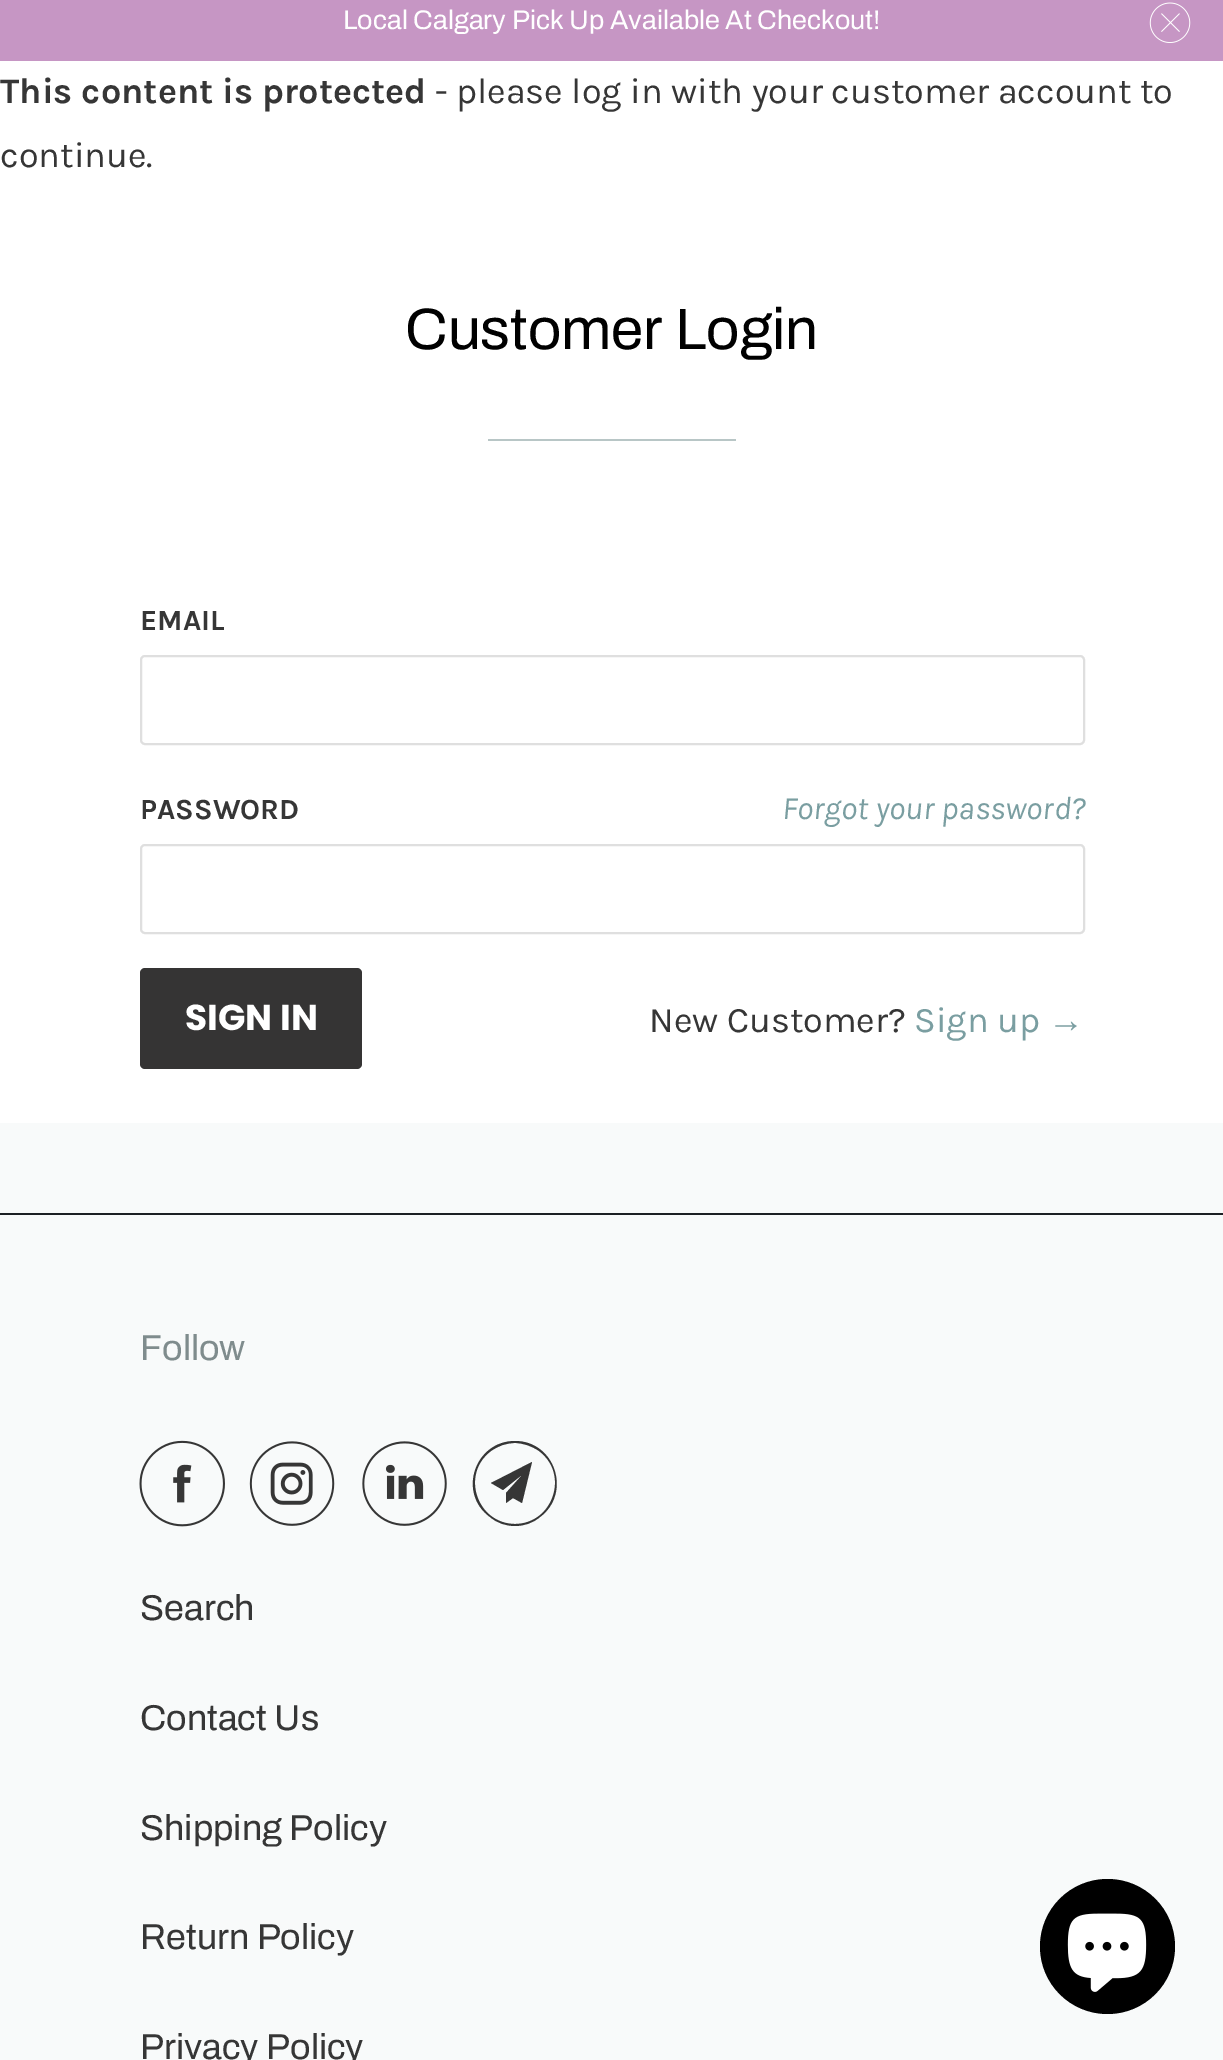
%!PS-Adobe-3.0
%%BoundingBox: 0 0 1223 2060
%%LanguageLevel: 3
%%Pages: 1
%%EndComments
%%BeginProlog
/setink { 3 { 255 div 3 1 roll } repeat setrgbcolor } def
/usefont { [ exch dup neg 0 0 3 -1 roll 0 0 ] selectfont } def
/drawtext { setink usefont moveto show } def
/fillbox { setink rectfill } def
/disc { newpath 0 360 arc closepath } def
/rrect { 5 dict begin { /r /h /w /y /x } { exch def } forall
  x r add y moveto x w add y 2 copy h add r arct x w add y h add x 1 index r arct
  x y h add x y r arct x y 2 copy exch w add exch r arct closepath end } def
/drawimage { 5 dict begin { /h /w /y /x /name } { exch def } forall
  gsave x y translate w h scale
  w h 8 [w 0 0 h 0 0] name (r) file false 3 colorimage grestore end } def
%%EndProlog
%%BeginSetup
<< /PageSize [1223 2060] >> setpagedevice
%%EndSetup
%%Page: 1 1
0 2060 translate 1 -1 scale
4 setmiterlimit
0 0 1223 2060 248 250 250 fillbox
0 61 1223 1062 255 255 255 fillbox
0 0 1223 61 198 150 196 fillbox
(Local Calgary Pick Up Available At Checkout!) 343 29 /Archivo-Regular 27 255 255 255 drawtext
(assets/img1.rgb) 1149 2 42 41 drawimage
(This content is protected) 0 103 /Karla-Bold 36 54 54 54 drawtext
(- please log in with your customer account to) 435 103 /Karla-Regular 36 54 54 54 drawtext
(continue.) 0 167 /Karla-Regular 36 54 54 54 drawtext
(Customer Login) 405 349 /Archivo-Regular 58.5 0 0 0 drawtext
488 439 248 2 184 198 198 fillbox
(EMAIL) 140 630 /Karla-Bold 29.25 54 54 54 drawtext
223 223 223 setink
2 setlinewidth
141 656 943 88 4 rrect stroke
(PASSWORD) 140 819 /Karla-Bold 29.25 54 54 54 drawtext
(Forgot your password?) 782 819 /Karla-Italic 32.5 122 158 161 drawtext
223 223 223 setink
141 845 943 88 4 rrect stroke
53 52 52 setink
140 968 222 101 5 rrect fill
(SIGN IN) 185 1030 /Poppins-Bold 36 255 255 255 drawtext
(New Customer?) 649 1032 /Karla-Regular 36 54 54 54 drawtext
(Sign up) 914 1032 /Karla-Regular 36 122 158 161 drawtext
(→) 1048 1032 /LiberationSans-Regular 36 122 158 161 drawtext
0 1213 1223 2 27 31 35 fillbox
(Follow) 140 1360 /Archivo-Regular 36 127 140 141 drawtext
(assets/img2.rgb) 139 1440 86 87 drawimage
(assets/img3.rgb) 249 1441 86 85 drawimage
(assets/img4.rgb) 362 1441 85 85 drawimage
54 54 54 setink
522 1503 moveto 513 1498 lineto 506 1503 lineto 506 1493 lineto 523 1474 lineto 503 1490 lineto 491 1483 lineto 532 1462 lineto closepath 515 1443 moveto 506 1443 498 1446 491 1451 curveto 460 1474 477 1524 515 1524 curveto 553 1524 570 1474 539 1451 curveto 532 1446 523 1443 515 1443 curveto closepath 515 1526 moveto 506 1526 497 1523 490 1517 curveto 457 1493 475 1441 515 1441 curveto 555 1441 572 1493 540 1517 curveto 533 1523 524 1526 515 1526 curveto closepath fill
(Search) 140 1620 /Archivo-Regular 36 54 54 54 drawtext
(Contact Us) 140 1730 /Archivo-Regular 36 54 54 54 drawtext
(Shipping Policy) 140 1840 /Archivo-Regular 36 54 54 54 drawtext
(Return Policy) 140 1949 /Archivo-Regular 36 54 54 54 drawtext
(Privacy Policy) 140 2059 /Archivo-Regular 36 54 54 54 drawtext
0 0 0 setink
1107.5 1946.5 67.5 disc fill
(assets/img5.rgb) 1067 1913 80 79 drawimage
showpage
%%EOF
